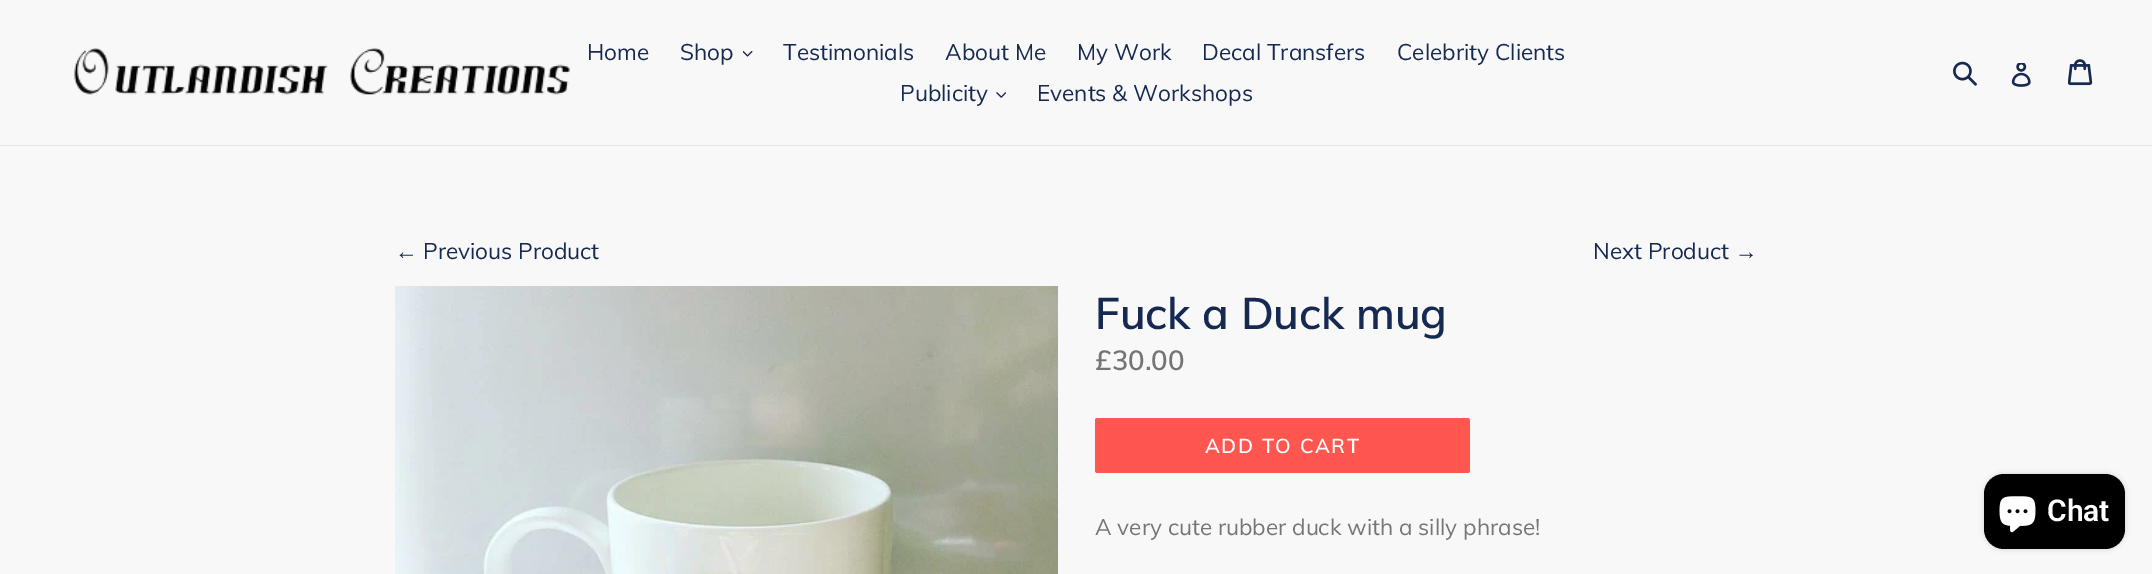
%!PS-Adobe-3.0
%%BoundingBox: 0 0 2152 574
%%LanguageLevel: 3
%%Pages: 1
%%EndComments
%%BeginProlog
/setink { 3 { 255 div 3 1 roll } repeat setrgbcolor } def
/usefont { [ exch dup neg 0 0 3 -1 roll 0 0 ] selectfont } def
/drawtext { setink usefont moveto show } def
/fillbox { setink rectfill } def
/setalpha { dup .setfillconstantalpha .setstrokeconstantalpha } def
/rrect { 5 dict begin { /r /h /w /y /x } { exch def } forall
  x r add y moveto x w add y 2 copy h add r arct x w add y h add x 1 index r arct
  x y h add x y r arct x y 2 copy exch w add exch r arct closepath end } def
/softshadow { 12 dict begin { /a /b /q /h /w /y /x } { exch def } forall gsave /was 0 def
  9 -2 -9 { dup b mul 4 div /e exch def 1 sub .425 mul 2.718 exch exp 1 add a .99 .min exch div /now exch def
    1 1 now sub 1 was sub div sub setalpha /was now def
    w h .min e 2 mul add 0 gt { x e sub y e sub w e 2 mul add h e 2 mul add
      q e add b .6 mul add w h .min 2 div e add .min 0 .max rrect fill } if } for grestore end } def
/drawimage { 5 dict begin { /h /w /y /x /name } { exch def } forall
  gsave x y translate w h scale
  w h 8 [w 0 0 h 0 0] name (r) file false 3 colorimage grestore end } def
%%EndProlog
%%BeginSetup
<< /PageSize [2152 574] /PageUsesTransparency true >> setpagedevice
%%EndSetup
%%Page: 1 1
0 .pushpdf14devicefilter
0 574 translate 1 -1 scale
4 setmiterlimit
0 0 2152 574 248 248 248 fillbox
0 145 2152 1 228 228 228 fillbox
(assets/img1.rgb) 74 47 496 48 drawimage
(Home) 587 60 /Muli-Regular 22.5 22 41 80 drawtext
(Shop) 680 60 /Muli-Regular 22.5 22 41 80 drawtext
(assets/img2.rgb) 743 50 10 7 drawimage
(Testimonials) 783 60 /Muli-Regular 22.5 22 41 80 drawtext
(About Me) 945 60 /Muli-Regular 22.5 22 41 80 drawtext
(My Work) 1077 60 /Muli-Regular 22.5 22 41 80 drawtext
(Decal Transfers) 1202 60 /Muli-Regular 22.5 22 41 80 drawtext
(Celebrity Clients) 1397 60 /Muli-Regular 22.5 22 41 80 drawtext
(Publicity) 900 101 /Muli-Regular 22.5 22 41 80 drawtext
(assets/img3.rgb) 996 92 10 6 drawimage
(Events & Workshops) 1037 101 /Muli-Regular 22.5 22 41 80 drawtext
(assets/img4.rgb) 1953 61 24 25 drawimage
(assets/img5.rgb) 2011 63 20 24 drawimage
(assets/img6.rgb) 2068 59 25 27 drawimage
(←) 395 259 /LiberationSans-Regular 22.5 22 41 80 drawtext
(Previous Product) 423 259 /Muli-Regular 22.5 22 41 80 drawtext
(Next Product) 1593 259 /Muli-Regular 22.5 22 41 80 drawtext
(→) 1735 259 /LiberationSans-Regular 22.5 22 41 80 drawtext
(assets/img7.rgb) 395 286 663 288 drawimage
(Fuck a Duck mug) 1095 329 /Muli-SemiBold 43.75 22 41 80 drawtext
(£30.00) 1095 370 /Muli-SemiBold 27.5 117 117 117 drawtext
255 87 79 setink
1095 418 375 55 2.5 rrect fill
/Muli-SemiBold 20 usefont
255 255 255 setink
1205 453 moveto 1.6 0 (ADD TO CART) ashow
(A very cute rubber duck with a silly phrase!) 1095 535 /Muli-Regular 22.5 117 117 117 drawtext
0 0 0 setink
1984 474 141 75 20 3 0.15 softshadow
1984 474 141 75 20 rrect fill
(assets/img8.rgb) 1999 496 37 37 drawimage
(Chat) 2047 521 /Roboto-SemiBold 30 255 255 255 drawtext
.poppdf14devicefilter showpage
%%EOF
